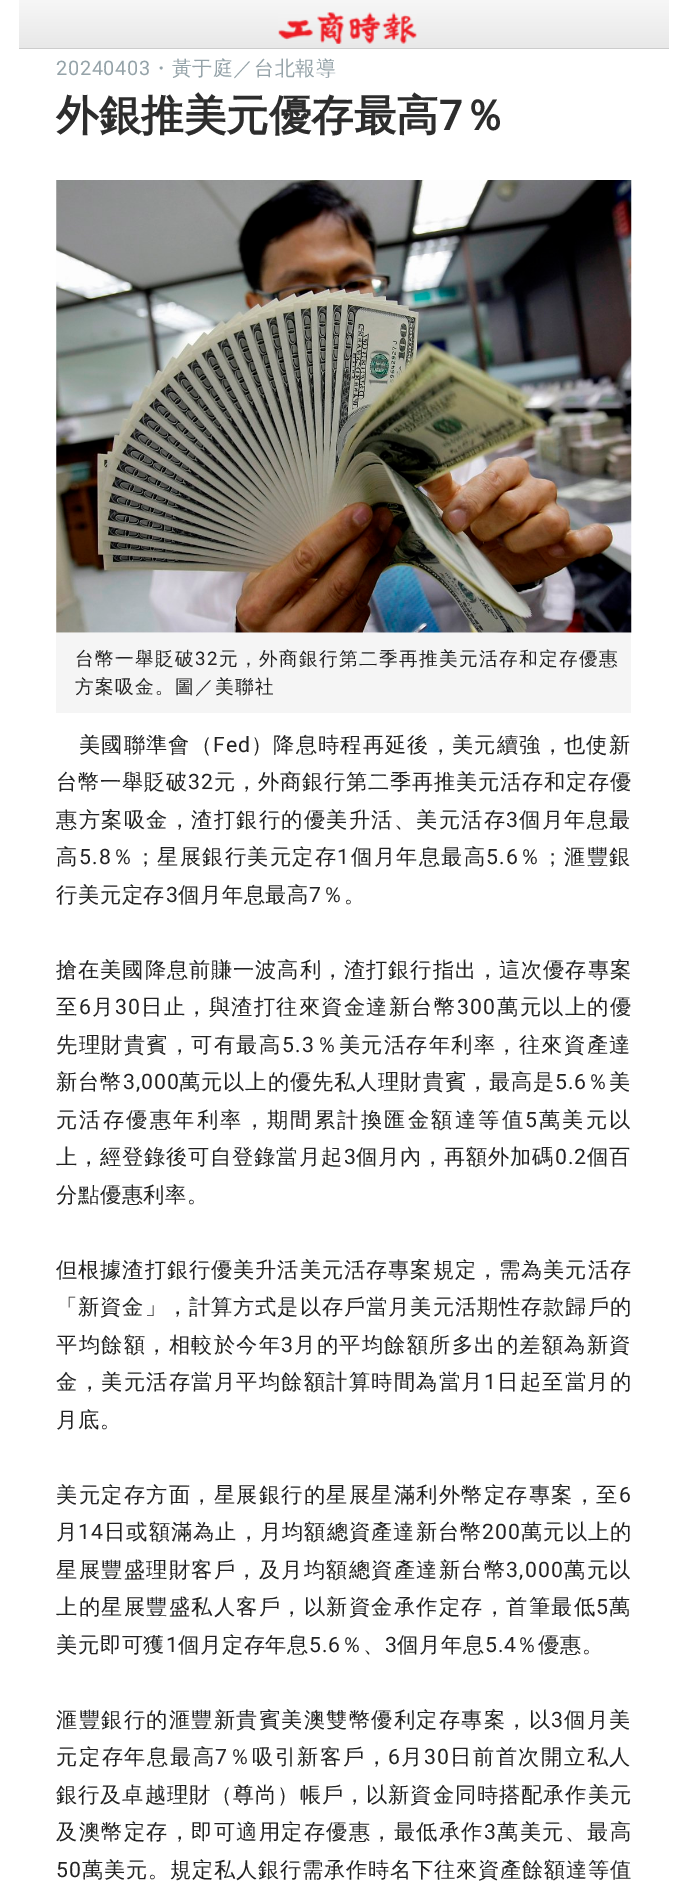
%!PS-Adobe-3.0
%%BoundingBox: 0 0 687 1894
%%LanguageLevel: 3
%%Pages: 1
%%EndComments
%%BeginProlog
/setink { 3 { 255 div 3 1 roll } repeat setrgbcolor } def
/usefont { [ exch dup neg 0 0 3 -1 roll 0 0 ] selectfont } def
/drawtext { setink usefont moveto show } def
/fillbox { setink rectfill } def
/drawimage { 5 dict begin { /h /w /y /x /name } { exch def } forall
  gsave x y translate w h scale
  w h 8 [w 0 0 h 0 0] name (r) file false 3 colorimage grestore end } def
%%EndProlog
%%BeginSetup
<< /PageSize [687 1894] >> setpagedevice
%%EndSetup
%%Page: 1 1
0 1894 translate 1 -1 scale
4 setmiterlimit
0 0 687 1894 255 255 255 fillbox
gsave 19 0 moveto 669 0 lineto 669 48 lineto 19 48 lineto closepath clip newpath
<< /ShadingType 2 /ColorSpace /DeviceRGB /Coords [344 0 344 48] /Extend [true true] /Function << /FunctionType 2 /Domain [0 1] /C0 [0.969 0.969 0.969] /C1 [0.91 0.91 0.91] /N 1 >> >> shfill grestore
19 48 650 1 204 204 204 fillbox
(assets/img1.rgb) 278 12 139 32 drawimage
/Roboto-Regular 20 usefont
149 163 169 setink
56 75 moveto 0.6 0 (20240403) ashow
/WenQuanYiZenHei-Medium 20 usefont
151 75 moveto 0.6 0 (・黃于庭／台北報導) ashow
(外銀推美元優存最高) 56 130 /WenQuanYiZenHei-Bold 42.5 45 45 45 drawtext
(7) 439 130 /Roboto-SemiBold 42.5 45 45 45 drawtext
(％) 463 130 /WenQuanYiZenHei-Bold 42.5 45 45 45 drawtext
(assets/img2.rgb) 56 180 576 453 drawimage
56 633 575 80 245 245 245 fillbox
/WenQuanYiZenHei-Medium 18.75 usefont
34 34 34 setink
75 665 moveto 1.25 0 (台幣一舉貶破) ashow
/Roboto-Regular 18.75 usefont
195 665 moveto 1.25 0 (32) ashow
/WenQuanYiZenHei-Medium 18.75 usefont
219 665 moveto 1.25 0 (元，外商銀行第二季再推美元活存和定存優惠) ashow
75 693 moveto 1.25 0 (方案吸金。圖／美聯社) ashow
/WenQuanYiZenHei-Medium 21.25 usefont
79 752 moveto 1.1 0 (美國聯準會（) ashow
/Roboto-Regular 21.25 usefont
213 752 moveto 1.1 0 (Fed) ashow
/WenQuanYiZenHei-Medium 21.25 usefont
251 752 moveto 1.1 0 (）降息時程再延後，美元續強，也使新) ashow
56 789 moveto 0.75 0 (台幣一舉貶破) ashow
/Roboto-Regular 21.25 usefont
188 789 moveto 0.75 0 (32) ashow
/WenQuanYiZenHei-Medium 21.25 usefont
214 789 moveto 0.75 0 (元，外商銀行第二季再推美元活存和定存優) ashow
56 827 moveto 1.25 0 (惠方案吸金，渣打銀行的優美升活、美元活存) ashow
/Roboto-Regular 21.25 usefont
506 827 moveto 1.25 0 (3) ashow
/WenQuanYiZenHei-Medium 21.25 usefont
519 827 moveto 1.25 0 (個月年息最) ashow
56 864 moveto 1.25 0 (高) ashow
/Roboto-Regular 21.25 usefont
79 864 moveto 1.25 0 (5.8) ashow
/WenQuanYiZenHei-Medium 21.25 usefont
112 864 moveto 1.25 0 (％；星展銀行美元定存) ashow
/Roboto-Regular 21.25 usefont
337 864 moveto 1.25 0 (1) ashow
/WenQuanYiZenHei-Medium 21.25 usefont
351 864 moveto 1.25 0 (個月年息最高) ashow
/Roboto-Regular 21.25 usefont
486 864 moveto 1.25 0 (5.6) ashow
/WenQuanYiZenHei-Medium 21.25 usefont
519 864 moveto 1.25 0 (％；滙豐銀) ashow
56 902 moveto 0.6 0 (行美元定存) ashow
/Roboto-Regular 21.25 usefont
166 902 moveto 0.6 0 (3) ashow
/WenQuanYiZenHei-Medium 21.25 usefont
178 902 moveto 0.6 0 (個月年息最高) ashow
/Roboto-Regular 21.25 usefont
309 902 moveto 0.6 0 (7) ashow
/WenQuanYiZenHei-Medium 21.25 usefont
322 902 moveto 0.6 0 (％。) ashow
56 977 moveto 0.9 0 (搶在美國降息前賺一波高利，渣打銀行指出，這次優存專案) ashow
56 1014 moveto 1.25 0 (至) ashow
/Roboto-Regular 21.25 usefont
79 1014 moveto 1.25 0 (6) ashow
/WenQuanYiZenHei-Medium 21.25 usefont
92 1014 moveto 1.25 0 (月) ashow
/Roboto-Regular 21.25 usefont
115 1014 moveto 1.25 0 (30) ashow
/WenQuanYiZenHei-Medium 21.25 usefont
141 1014 moveto 1.25 0 (日止，與渣打往來資金達新台幣) ashow
/Roboto-Regular 21.25 usefont
457 1014 moveto 1.25 0 (300) ashow
/WenQuanYiZenHei-Medium 21.25 usefont
497 1014 moveto 1.25 0 (萬元以上的優) ashow
56 1052 moveto 1.3 0 (先理財貴賓，可有最高) ashow
/Roboto-Regular 21.25 usefont
282 1052 moveto 1.3 0 (5.3) ashow
/WenQuanYiZenHei-Medium 21.25 usefont
316 1052 moveto 1.3 0 (％美元活存年利率，往來資產達) ashow
56 1089 moveto 0.9 0 (新台幣) ashow
/Roboto-Regular 21.25 usefont
123 1089 moveto 0.9 0 (3,000) ashow
/WenQuanYiZenHei-Medium 21.25 usefont
179 1089 moveto 0.9 0 (萬元以上的優先私人理財貴賓，最高是) ashow
/Roboto-Regular 21.25 usefont
555 1089 moveto 0.9 0 (5.6) ashow
/WenQuanYiZenHei-Medium 21.25 usefont
587 1089 moveto 0.9 0 (％美) ashow
56 1127 moveto 2.2 0 (元活存優惠年利率，期間累計換匯金額達等值) ashow
/Roboto-Regular 21.25 usefont
525 1127 moveto 2.2 0 (5) ashow
/WenQuanYiZenHei-Medium 21.25 usefont
539 1127 moveto 2.2 0 (萬美元以) ashow
56 1164 moveto 0.8 0 (上，經登錄後可自登錄當月起) ashow
/Roboto-Regular 21.25 usefont
344 1164 moveto 0.8 0 (3) ashow
/WenQuanYiZenHei-Medium 21.25 usefont
356 1164 moveto 0.8 0 (個月內，再額外加碼) ashow
/Roboto-Regular 21.25 usefont
555 1164 moveto 0.8 0 (0.2) ashow
/WenQuanYiZenHei-Medium 21.25 usefont
587 1164 moveto 0.8 0 (個百) ashow
56 1202 moveto 0.6 0 (分點優惠利率。) ashow
56 1277 moveto 0.9 0 (但根據渣打銀行優美升活美元活存專案規定，需為美元活存) ashow
56 1314 moveto 0.9 0 (「新資金」，計算方式是以存戶當月美元活期性存款歸戶的) ashow
56 1352 moveto 1.25 0 (平均餘額，相較於今年) ashow
/Roboto-Regular 21.25 usefont
281 1352 moveto 1.25 0 (3) ashow
/WenQuanYiZenHei-Medium 21.25 usefont
294 1352 moveto 1.25 0 (月的平均餘額所多出的差額為新資) ashow
56 1389 moveto 1.25 0 (金，美元活存當月平均餘額計算時間為當月) ashow
/Roboto-Regular 21.25 usefont
484 1389 moveto 1.25 0 (1) ashow
/WenQuanYiZenHei-Medium 21.25 usefont
497 1389 moveto 1.25 0 (日起至當月的) ashow
56 1427 moveto 0.6 0 (月底。) ashow
56 1502 moveto 1.25 0 (美元定存方面，星展銀行的星展星滿利外幣定存專案，至) ashow
/Roboto-Regular 21.25 usefont
619 1502 moveto 1.25 0 (6) ashow
/WenQuanYiZenHei-Medium 21.25 usefont
56 1539 moveto 1 0 (月) ashow
/Roboto-Regular 21.25 usefont
78 1539 moveto 1 0 (14) ashow
/WenQuanYiZenHei-Medium 21.25 usefont
104 1539 moveto 1 0 (日或額滿為止，月均額總資產達新台幣) ashow
/Roboto-Regular 21.25 usefont
482 1539 moveto 1 0 (200) ashow
/WenQuanYiZenHei-Medium 21.25 usefont
521 1539 moveto 1 0 (萬元以上的) ashow
56 1577 moveto 1.25 0 (星展豐盛理財客戶，及月均額總資產達新台幣) ashow
/Roboto-Regular 21.25 usefont
506 1577 moveto 1.25 0 (3,000) ashow
/WenQuanYiZenHei-Medium 21.25 usefont
564 1577 moveto 1.25 0 (萬元以) ashow
56 1614 moveto 1.25 0 (上的星展豐盛私人客戶，以新資金承作定存，首筆最低) ashow
/Roboto-Regular 21.25 usefont
596 1614 moveto 1.25 0 (5) ashow
/WenQuanYiZenHei-Medium 21.25 usefont
609 1614 moveto 1.25 0 (萬) ashow
56 1652 moveto 0.6 0 (美元即可獲) ashow
/Roboto-Regular 21.25 usefont
166 1652 moveto 0.6 0 (1) ashow
/WenQuanYiZenHei-Medium 21.25 usefont
178 1652 moveto 0.6 0 (個月定存年息) ashow
/Roboto-Regular 21.25 usefont
309 1652 moveto 0.6 0 (5.6) ashow
/WenQuanYiZenHei-Medium 21.25 usefont
341 1652 moveto 0.6 0 (％、) ashow
/Roboto-Regular 21.25 usefont
385 1652 moveto 0.6 0 (3) ashow
/WenQuanYiZenHei-Medium 21.25 usefont
397 1652 moveto 0.6 0 (個月年息) ashow
/Roboto-Regular 21.25 usefont
485 1652 moveto 0.6 0 (5.4) ashow
/WenQuanYiZenHei-Medium 21.25 usefont
516 1652 moveto 0.6 0 (％優惠。) ashow
56 1727 moveto 1.25 0 (滙豐銀行的滙豐新貴賓美澳雙幣優利定存專案，以) ashow
/Roboto-Regular 21.25 usefont
551 1727 moveto 1.25 0 (3) ashow
/WenQuanYiZenHei-Medium 21.25 usefont
564 1727 moveto 1.25 0 (個月美) ashow
56 1764 moveto 1.5 0 (元定存年息最高) ashow
/Roboto-Regular 21.25 usefont
215 1764 moveto 1.5 0 (7) ashow
/WenQuanYiZenHei-Medium 21.25 usefont
229 1764 moveto 1.5 0 (％吸引新客戶，) ashow
/Roboto-Regular 21.25 usefont
388 1764 moveto 1.5 0 (6) ashow
/WenQuanYiZenHei-Medium 21.25 usefont
401 1764 moveto 1.5 0 (月) ashow
/Roboto-Regular 21.25 usefont
424 1764 moveto 1.5 0 (30) ashow
/WenQuanYiZenHei-Medium 21.25 usefont
450 1764 moveto 1.5 0 (日前首次開立私人) ashow
56 1802 moveto 0.9 0 (銀行及卓越理財（尊尚）帳戶，以新資金同時搭配承作美元) ashow
56 1839 moveto 1.25 0 (及澳幣定存，即可適用定存優惠，最低承作) ashow
/Roboto-Regular 21.25 usefont
484 1839 moveto 1.25 0 (3) ashow
/WenQuanYiZenHei-Medium 21.25 usefont
497 1839 moveto 1.25 0 (萬美元、最高) ashow
/Roboto-Regular 21.25 usefont
56 1877 moveto 0.75 0 (50) ashow
/WenQuanYiZenHei-Medium 21.25 usefont
82 1877 moveto 0.75 0 (萬美元。規定私人銀行需承作時名下往來資產餘額達等值) ashow
showpage
%%EOF
